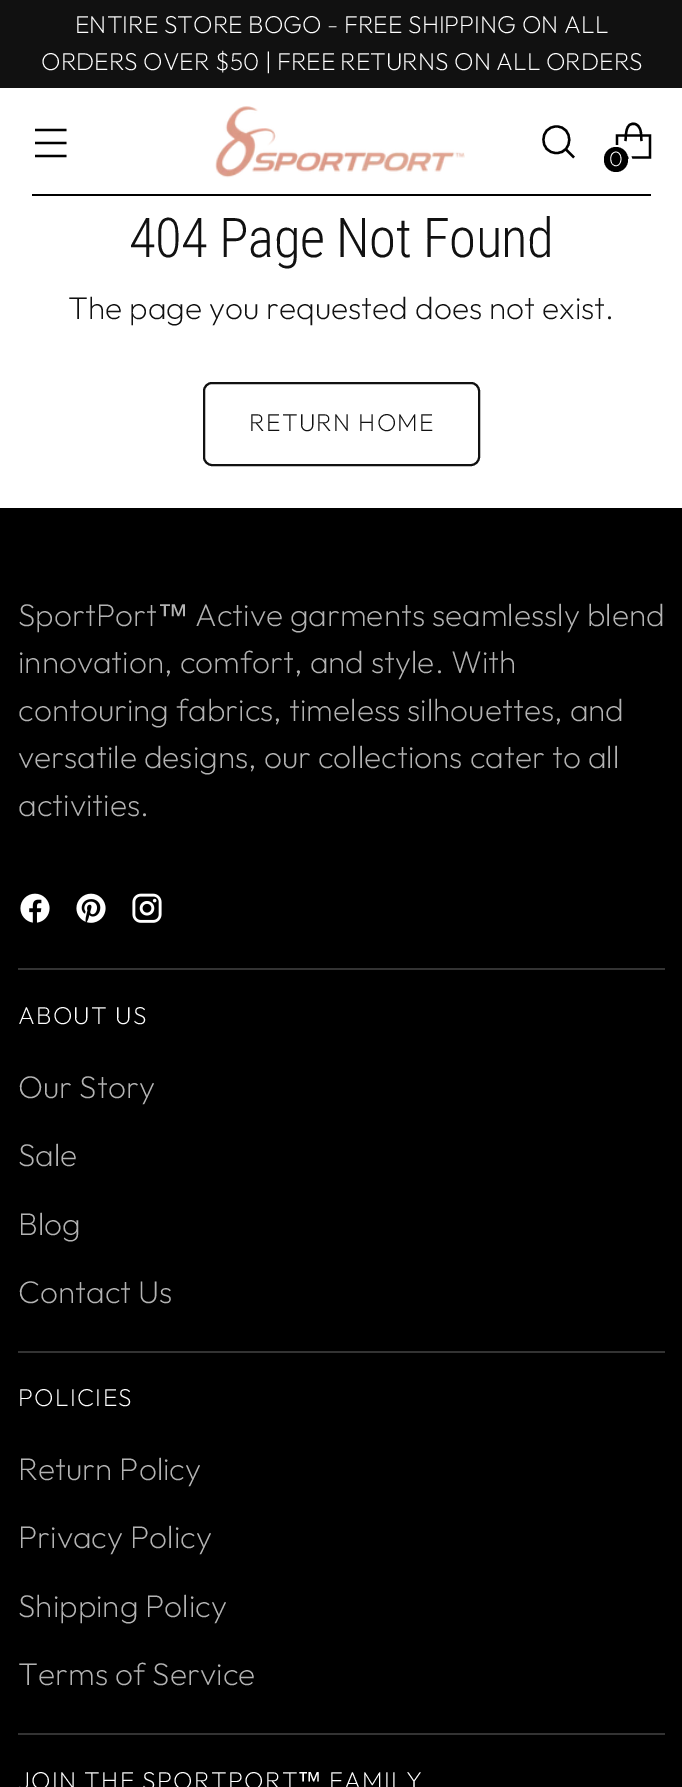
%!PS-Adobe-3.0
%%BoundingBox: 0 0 682 1787
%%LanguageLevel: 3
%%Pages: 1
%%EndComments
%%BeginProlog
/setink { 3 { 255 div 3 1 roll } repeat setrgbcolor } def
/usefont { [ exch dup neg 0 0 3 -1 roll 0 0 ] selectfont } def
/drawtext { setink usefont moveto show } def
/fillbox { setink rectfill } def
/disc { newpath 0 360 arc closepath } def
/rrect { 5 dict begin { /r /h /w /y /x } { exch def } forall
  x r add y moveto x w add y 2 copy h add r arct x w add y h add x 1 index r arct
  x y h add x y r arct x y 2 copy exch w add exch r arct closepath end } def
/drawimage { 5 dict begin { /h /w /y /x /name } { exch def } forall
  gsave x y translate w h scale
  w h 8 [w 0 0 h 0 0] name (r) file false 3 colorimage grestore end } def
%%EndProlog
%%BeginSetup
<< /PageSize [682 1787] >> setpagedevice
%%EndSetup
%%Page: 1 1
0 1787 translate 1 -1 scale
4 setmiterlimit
0 0 682 1787 255 255 255 fillbox
0 0 682 88 17 17 17 fillbox
(ENTIRE STORE BOGO - FREE SHIPPING ON ALL) 75 33 /Outfit-ExtraLight 24.6 255 255 255 drawtext
(ORDERS OVER $50 | FREE) 41 70 /Outfit-ExtraLight 24.6 255 255 255 drawtext
(RETURNS ON ALL ORDERS) 340 70 /Outfit-ExtraLight 24.6 255 255 255 drawtext
32 194 619 2 0 0 0 fillbox
2.3 setlinewidth
35 143 moveto 66.5 143 lineto 35 130 moveto 66.5 130 lineto 35 156 moveto 66.5 156 lineto stroke
(assets/img1.rgb) 215 106 250 72 drawimage
1 setlinecap
556.5 153 moveto 573.5 153 573.5 126.5 556.5 126.5 curveto 539 126.5 539 153 556.5 153 curveto closepath stroke
0 setlinecap
566 149.5 moveto 574 157.5 lineto stroke
2 setlinejoin
641.5 141 moveto 641 137 641.5 132.5 640 129 curveto 639 126.5 637.5 124.5 635 124 curveto 625.5 122 626 134.5 625.5 141 curveto stroke
0 setlinejoin
650 157.5 moveto 650 135.5 lineto 617 135.5 lineto 617 157.5 lineto closepath stroke
255 255 255 setink
3 setlinewidth
617 160 13.5 disc stroke
0 0 0 setink
604 147 24 25 12 rrect fill
(0) 609 166 /Outfit-ExtraLight 21 255 255 255 drawtext
/RobotoCondensed-Light 54.75 usefont
17 17 17 setink
129 257 moveto -0.5 0 (404 Page Not Found) ashow
(The page you requested does not exist.) 68 319 /Outfit-ExtraLight 31.6 17 17 17 drawtext
2 setlinewidth
204 383 275 82 8 rrect stroke
/Outfit-ExtraLight 24.6 usefont
249 431 moveto 1.25 0 (RETURN HOME) ashow
0 508 682 1279 0 0 0 fillbox
18 968 647 2 51 51 51 fillbox
(SportPort) 18 626 /Outfit-ExtraLight 31.6 179 179 179 drawtext
(™) 157 626 /LiberationSans-Regular 31.6 179 179 179 drawtext
(Active garments seamlessly blend) 195 626 /Outfit-ExtraLight 31.6 179 179 179 drawtext
(innovation, comfort, and style. With) 18 673 /Outfit-ExtraLight 31.6 179 179 179 drawtext
(contouring fabrics, timeless silhouettes, and) 18 721 /Outfit-ExtraLight 31.6 179 179 179 drawtext
(versatile designs, our collections cater to all) 18 768 /Outfit-ExtraLight 31.6 179 179 179 drawtext
(activities.) 18 816 /Outfit-ExtraLight 31.6 179 179 179 drawtext
(assets/img2.rgb) 20 893 30 30 drawimage
(assets/img3.rgb) 76 893 30 30 drawimage
(assets/img4.rgb) 132 893 30 30 drawimage
18 1351 647 2 51 51 51 fillbox
/Outfit-ExtraLight 24.6 usefont
255 255 255 setink
18 1024 moveto 1.25 0 (ABOUT US) ashow
(Our Story) 18 1098 /Outfit-ExtraLight 31.6 179 179 179 drawtext
(Sale) 18 1166 /Outfit-ExtraLight 31.6 179 179 179 drawtext
(Blog) 18 1235 /Outfit-ExtraLight 31.6 179 179 179 drawtext
(Contact Us) 18 1303 /Outfit-ExtraLight 31.6 179 179 179 drawtext
18 1733 647 2 51 51 51 fillbox
/Outfit-ExtraLight 24.6 usefont
255 255 255 setink
18 1406 moveto 1.25 0 (POLICIES) ashow
(Return Policy) 18 1480 /Outfit-ExtraLight 31.6 179 179 179 drawtext
(Privacy Policy) 18 1548 /Outfit-ExtraLight 31.6 179 179 179 drawtext
(Shipping Policy) 18 1617 /Outfit-ExtraLight 31.6 179 179 179 drawtext
(Terms of Service) 18 1685 /Outfit-ExtraLight 31.6 179 179 179 drawtext
/Outfit-ExtraLight 24.6 usefont
255 255 255 setink
18 1789 moveto 1.25 0 (JOIN THE SPORTPORT) ashow
/LiberationSans-Regular 24.6 usefont
297 1789 moveto 1.25 0 (™) ashow
/Outfit-ExtraLight 24.6 usefont
329 1789 moveto 1.25 0 (FAMILY) ashow
showpage
%%EOF
